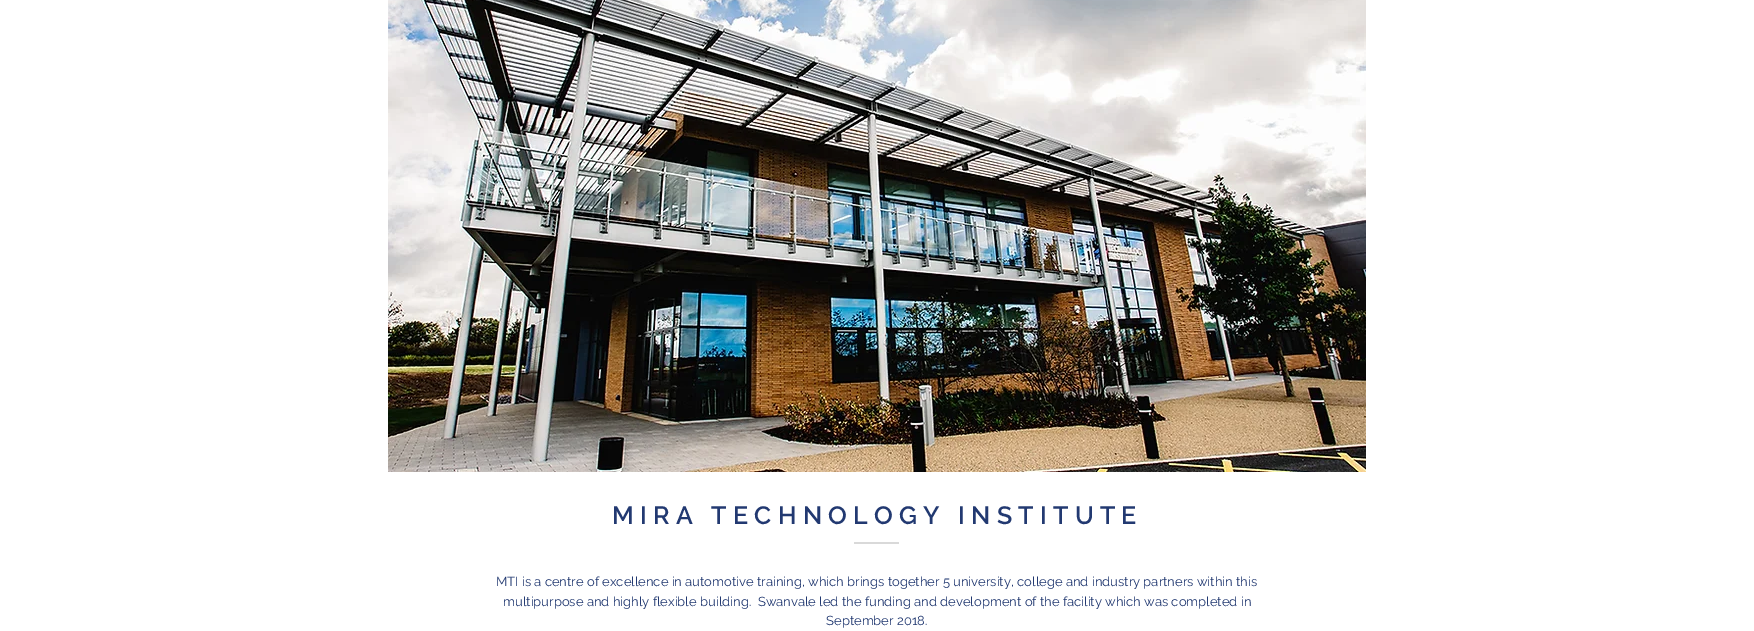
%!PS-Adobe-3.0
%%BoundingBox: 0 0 1754 631
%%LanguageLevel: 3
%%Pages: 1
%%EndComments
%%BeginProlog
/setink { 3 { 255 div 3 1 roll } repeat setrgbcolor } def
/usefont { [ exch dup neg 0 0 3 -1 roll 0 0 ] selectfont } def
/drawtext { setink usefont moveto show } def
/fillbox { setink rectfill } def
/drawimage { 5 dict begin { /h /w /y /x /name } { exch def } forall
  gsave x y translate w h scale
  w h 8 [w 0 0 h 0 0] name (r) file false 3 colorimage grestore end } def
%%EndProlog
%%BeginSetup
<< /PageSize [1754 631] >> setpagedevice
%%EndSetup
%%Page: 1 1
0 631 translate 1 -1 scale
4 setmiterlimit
0 0 1754 631 255 255 255 fillbox
(assets/img1.rgb) 388 0 978 472 drawimage
/Raleway-SemiBold 25 usefont
34 57 113 setink
612 524 moveto 6.25 0 (MIRA TECHNOLOGY INSTITUTE) ashow
854 542 45 2 217 217 217 fillbox
(MTI is a centre of excellence in automotive training, which brings together 5 university, college and industry partners within this) 496 586 /Raleway-Regular 13 34 57 113 drawtext
(multipurpose and highly flexible building.  Swanvale led the funding and development of the facility which was completed in) 503 606 /Raleway-Regular 13 34 57 113 drawtext
(September 2018.) 826 625 /Raleway-Regular 13 34 57 113 drawtext
showpage
%%EOF
